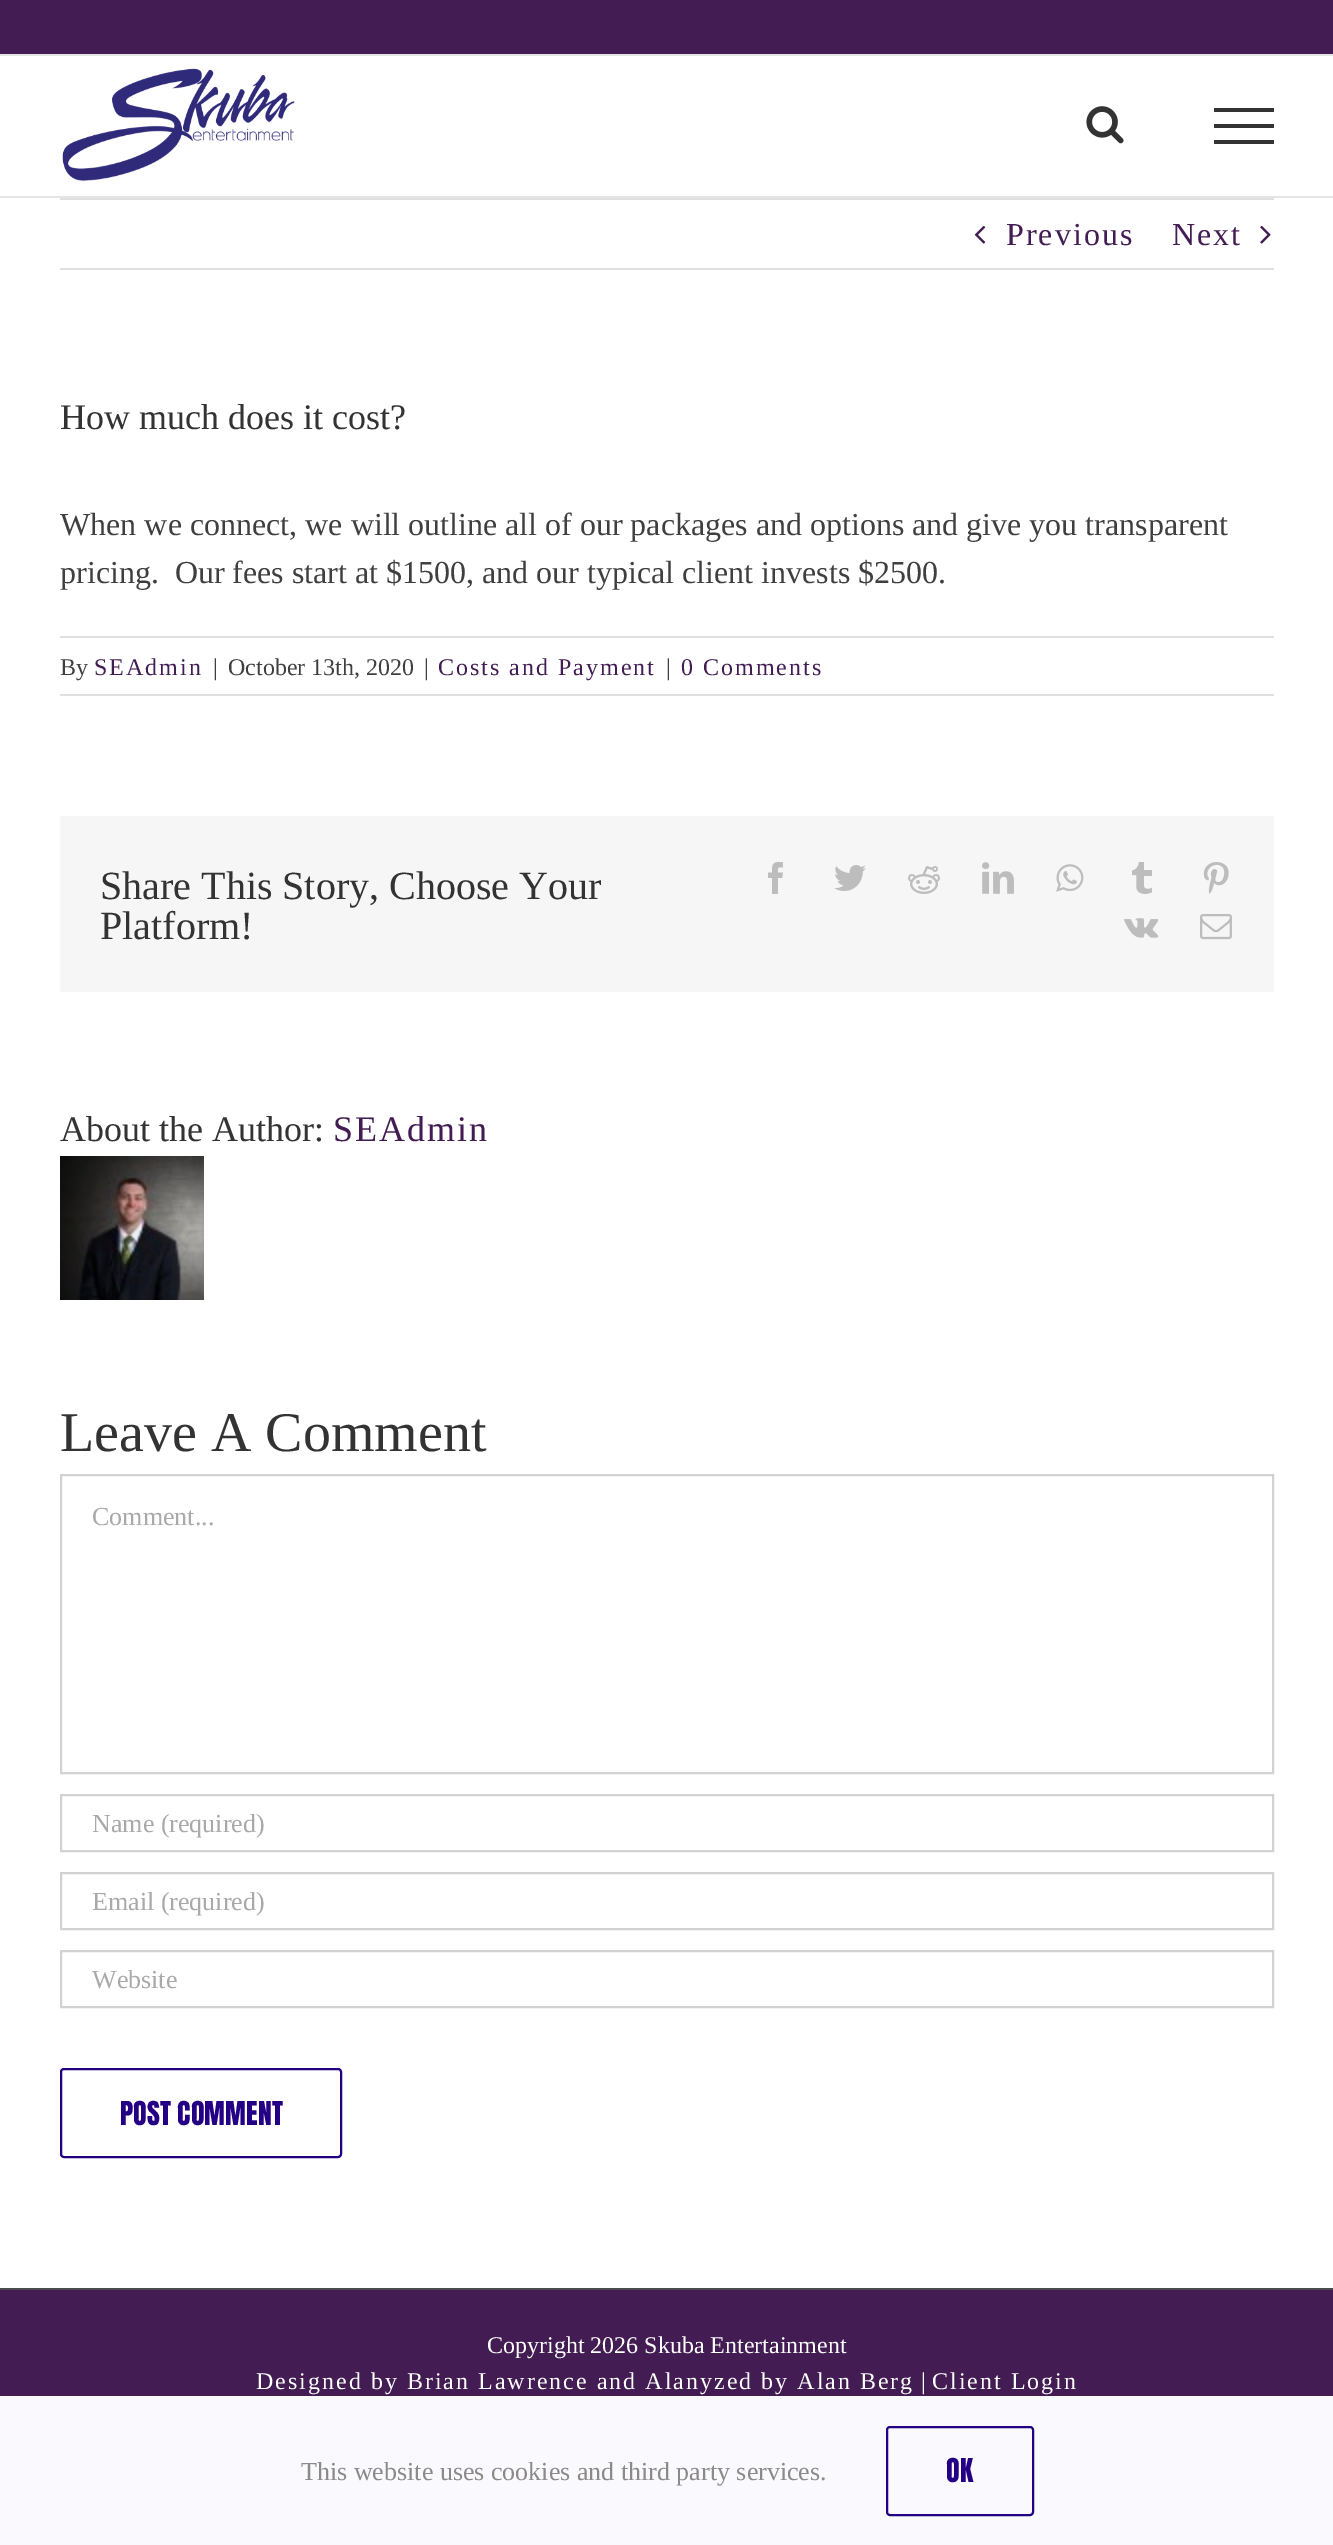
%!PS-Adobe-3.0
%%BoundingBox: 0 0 1333 2545
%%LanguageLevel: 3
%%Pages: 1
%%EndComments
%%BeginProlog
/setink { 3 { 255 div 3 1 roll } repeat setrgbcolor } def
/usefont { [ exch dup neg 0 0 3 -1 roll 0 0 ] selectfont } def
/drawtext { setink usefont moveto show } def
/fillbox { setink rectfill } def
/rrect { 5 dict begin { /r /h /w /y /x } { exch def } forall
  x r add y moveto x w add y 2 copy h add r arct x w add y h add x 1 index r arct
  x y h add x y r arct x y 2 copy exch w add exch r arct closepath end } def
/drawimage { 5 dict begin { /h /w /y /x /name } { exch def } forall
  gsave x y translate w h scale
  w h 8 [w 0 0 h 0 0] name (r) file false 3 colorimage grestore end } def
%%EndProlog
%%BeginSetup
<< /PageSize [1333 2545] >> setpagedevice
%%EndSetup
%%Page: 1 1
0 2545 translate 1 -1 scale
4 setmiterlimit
0 0 1333 2545 255 255 255 fillbox
0 0 1333 54 66 28 82 fillbox
0 54 1333 2 229 229 229 fillbox
0 196 1333 2 229 229 229 fillbox
(assets/img1.rgb) 62 68 233 114 drawimage
(assets/img2.rgb) 1086 106 38 38 drawimage
1214 108 60 4 51 51 51 fillbox
1214 124 60 4 51 51 51 fillbox
1214 140 60 4 51 51 51 fillbox
60 198 1214 2 224 222 222 fillbox
60 268 1214 2 224 222 222 fillbox
(assets/img3.rgb) 974 225 12 19 drawimage
/LiberationSerif-Regular 32 usefont
66 28 82 setink
1006 245 moveto 2 0 (Previous) ashow
1172 245 moveto 2 0 (Next) ashow
(assets/img4.rgb) 1260 225 11 19 drawimage
(How much does it cost?) 60 429 /LiberationSerif-Regular 36 51 51 51 drawtext
(When we connect, we will outline all of our packages and options and give you transparent) 60 535 /LiberationSerif-Regular 32 63 63 63 drawtext
(pricing.  Our fees start at $1500, and our typical client invests $2500.) 60 583 /LiberationSerif-Regular 32 63 63 63 drawtext
60 636 1214 2 224 222 222 fillbox
60 694 1214 2 224 222 222 fillbox
(By) 60 675 /LiberationSerif-Regular 24 63 63 63 drawtext
66 28 82 setink
94 675 moveto 2 0 (SEAdmin) ashow
(|) 213 675 /LiberationSerif-Regular 24 63 63 63 drawtext
(October 13th, 2020) 228 675 /LiberationSerif-Regular 24 63 63 63 drawtext
(|) 424 675 /LiberationSerif-Regular 24 63 63 63 drawtext
66 28 82 setink
438 675 moveto 2 0 (Costs and Payment) ashow
(|) 666 675 /LiberationSerif-Regular 24 63 63 63 drawtext
66 28 82 setink
681 675 moveto 2 0 (0 Comments) ashow
60 816 1214 176 246 246 246 fillbox
(Share This Story, Choose Your) 100 899 /LiberationSerif-Regular 40 51 51 51 drawtext
(Platform!) 100 939 /LiberationSerif-Regular 40 51 51 51 drawtext
(assets/img5.rgb) 768 862 15 32 drawimage
(assets/img6.rgb) 834 865 32 26 drawimage
(assets/img7.rgb) 908 866 32 28 drawimage
(assets/img8.rgb) 982 862 32 32 drawimage
(assets/img9.rgb) 1056 864 28 28 drawimage
(assets/img10.rgb) 1132 862 20 32 drawimage
(assets/img11.rgb) 1203 862 26 32 drawimage
(assets/img12.rgb) 1124 918 35 20 drawimage
(assets/img13.rgb) 1200 914 32 26 drawimage
(About the Author:) 60 1141 /LiberationSerif-Regular 36 51 51 51 drawtext
66 28 82 setink
333 1141 moveto 2 0 (SEAdmin) ashow
(assets/img14.rgb) 60 1156 144 144 drawimage
(Leave A Comment) 60 1451 /LiberationSerif-Regular 56 51 51 51 drawtext
210 210 210 setink
2 setlinewidth
61 1475 1212 298 rectstroke
(Comment...) 92 1525 /LiberationSerif-Regular 26 170 169 169 drawtext
210 210 210 setink
61 1795 1212 56 rectstroke
(Name \(required\)) 92 1832 /LiberationSerif-Regular 26 170 169 169 drawtext
210 210 210 setink
61 1873 1212 56 rectstroke
(Email \(required\)) 92 1910 /LiberationSerif-Regular 26 170 169 169 drawtext
210 210 210 setink
61 1951 1212 56 rectstroke
(Website) 92 1988 /LiberationSerif-Regular 26 170 169 169 drawtext
36 1 132 setink
61 2069 280 88 3 rrect stroke
(POST COMMENT) 120 2125 /Anton-Regular 28 36 1 132 drawtext
0 2290 1333 106 66 28 82 fillbox
0 2288 1333 2 75 76 77 fillbox
(Copyright 2026 Skuba Entertainment) 487 2353 /LiberationSerif-Regular 24 255 255 255 drawtext
256 2389 moveto 2 0 (Designed by Brian Lawrence and Alanyzed by Alan Berg) ashow
(|) 921 2389 /LiberationSerif-Regular 24 255 255 255 drawtext
932 2389 moveto 2 0 (Client Login) ashow
0 2396 1333 149 250 250 254 fillbox
(This website uses cookies and third party services.) 301 2480 /LiberationSerif-Regular 26 140 137 137 drawtext
36 1 132 setink
887 2427 146 88 3 rrect stroke
(OK) 946 2482 /Anton-Regular 28 36 1 132 drawtext
showpage
%%EOF
